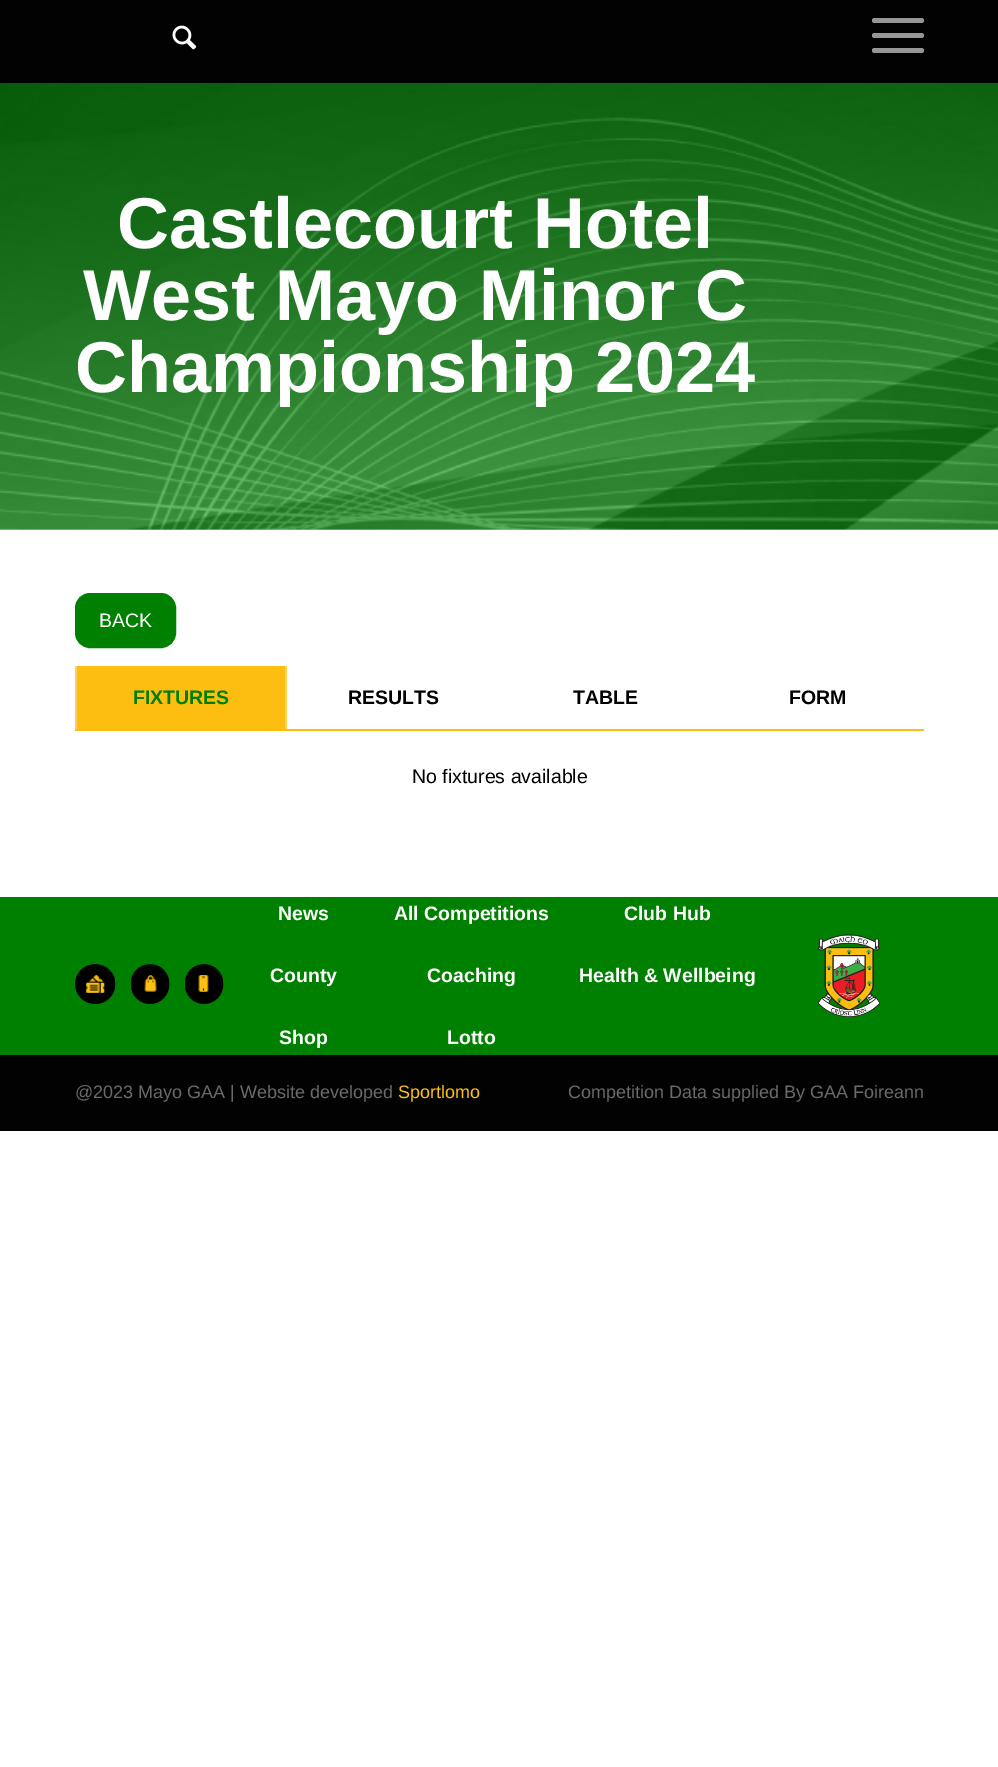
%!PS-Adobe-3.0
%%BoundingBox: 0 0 998 1767
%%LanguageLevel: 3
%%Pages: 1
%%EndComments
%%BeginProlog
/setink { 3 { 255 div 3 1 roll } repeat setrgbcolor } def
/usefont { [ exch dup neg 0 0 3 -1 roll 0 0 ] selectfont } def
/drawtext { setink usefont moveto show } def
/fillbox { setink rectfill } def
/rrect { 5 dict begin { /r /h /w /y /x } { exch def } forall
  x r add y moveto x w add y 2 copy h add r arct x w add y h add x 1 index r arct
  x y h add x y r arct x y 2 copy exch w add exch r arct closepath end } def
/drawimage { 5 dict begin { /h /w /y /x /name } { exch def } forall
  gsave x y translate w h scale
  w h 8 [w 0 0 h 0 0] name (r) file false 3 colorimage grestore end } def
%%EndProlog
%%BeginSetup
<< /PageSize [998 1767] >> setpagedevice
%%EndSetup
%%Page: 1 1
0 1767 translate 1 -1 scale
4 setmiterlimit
0 0 998 1767 255 255 255 fillbox
0 0 998 83 2 2 2 fillbox
(assets/img1.rgb) 172 25 25 25 drawimage
150 150 150 setink
872 33 52 5 2.5 rrect fill
872 18 52 5 2.5 rrect fill
872 48 52 5 2.5 rrect fill
0 529 998 1 253 189 17 fillbox
(assets/img2.rgb) 0 83 998 447 drawimage
(Castlecourt Hotel) 117 248 /LiberationSans-Bold 72 255 255 255 drawtext
(West Mayo Minor C) 83 320 /LiberationSans-Bold 72 255 255 255 drawtext
(Championship 2024) 75 392 /LiberationSans-Bold 72 255 255 255 drawtext
0 128 0 setink
76 594 99 53 14 rrect gsave fill grestore
2 setlinewidth
stroke
(BACK) 99 627 /LiberationSans-Regular 19.5 255 255 255 drawtext
75 729 849 2 253 189 17 fillbox
77 666 208 63 253 189 17 fillbox
285 666 2 63 254 209 88 fillbox
75 666 2 63 254 209 88 fillbox
(FIXTURES) 133 704 /LiberationSans-Bold 19.5 0 128 0 drawtext
(RESULTS) 348 704 /LiberationSans-Bold 19.5 0 0 0 drawtext
(TABLE) 573 704 /LiberationSans-Bold 19.5 0 0 0 drawtext
(FORM) 789 704 /LiberationSans-Bold 19.5 0 0 0 drawtext
(No fixtures available) 412 783 /LiberationSans-Regular 19.5 0 0 0 drawtext
0 897 998 158 0 128 0 fillbox
(assets/img3.rgb) 75 964 41 40 drawimage
(assets/img4.rgb) 131 964 39 40 drawimage
(assets/img5.rgb) 185 964 39 40 drawimage
(News) 278 920 /LiberationSans-Bold 19.5 255 255 255 drawtext
(All Competitions) 394 920 /LiberationSans-Bold 19.5 255 255 255 drawtext
(Club Hub) 624 920 /LiberationSans-Bold 19.5 255 255 255 drawtext
(County) 270 982 /LiberationSans-Bold 19.5 255 255 255 drawtext
(Coaching) 427 982 /LiberationSans-Bold 19.5 255 255 255 drawtext
(Health & Wellbeing) 579 982 /LiberationSans-Bold 19.5 255 255 255 drawtext
(Shop) 279 1044 /LiberationSans-Bold 19.5 255 255 255 drawtext
(Lotto) 447 1044 /LiberationSans-Bold 19.5 255 255 255 drawtext
(assets/img6.rgb) 817 934 64 83 drawimage
0 1055 998 76 2 2 2 fillbox
(@2023 Mayo GAA | Website developed) 75 1098 /LiberationSans-Regular 18 106 106 106 drawtext
(Sportlomo) 398 1098 /LiberationSans-Regular 18 255 193 15 drawtext
(Competition Data supplied By GAA Foireann) 568 1098 /LiberationSans-Regular 18 106 106 106 drawtext
showpage
%%EOF
